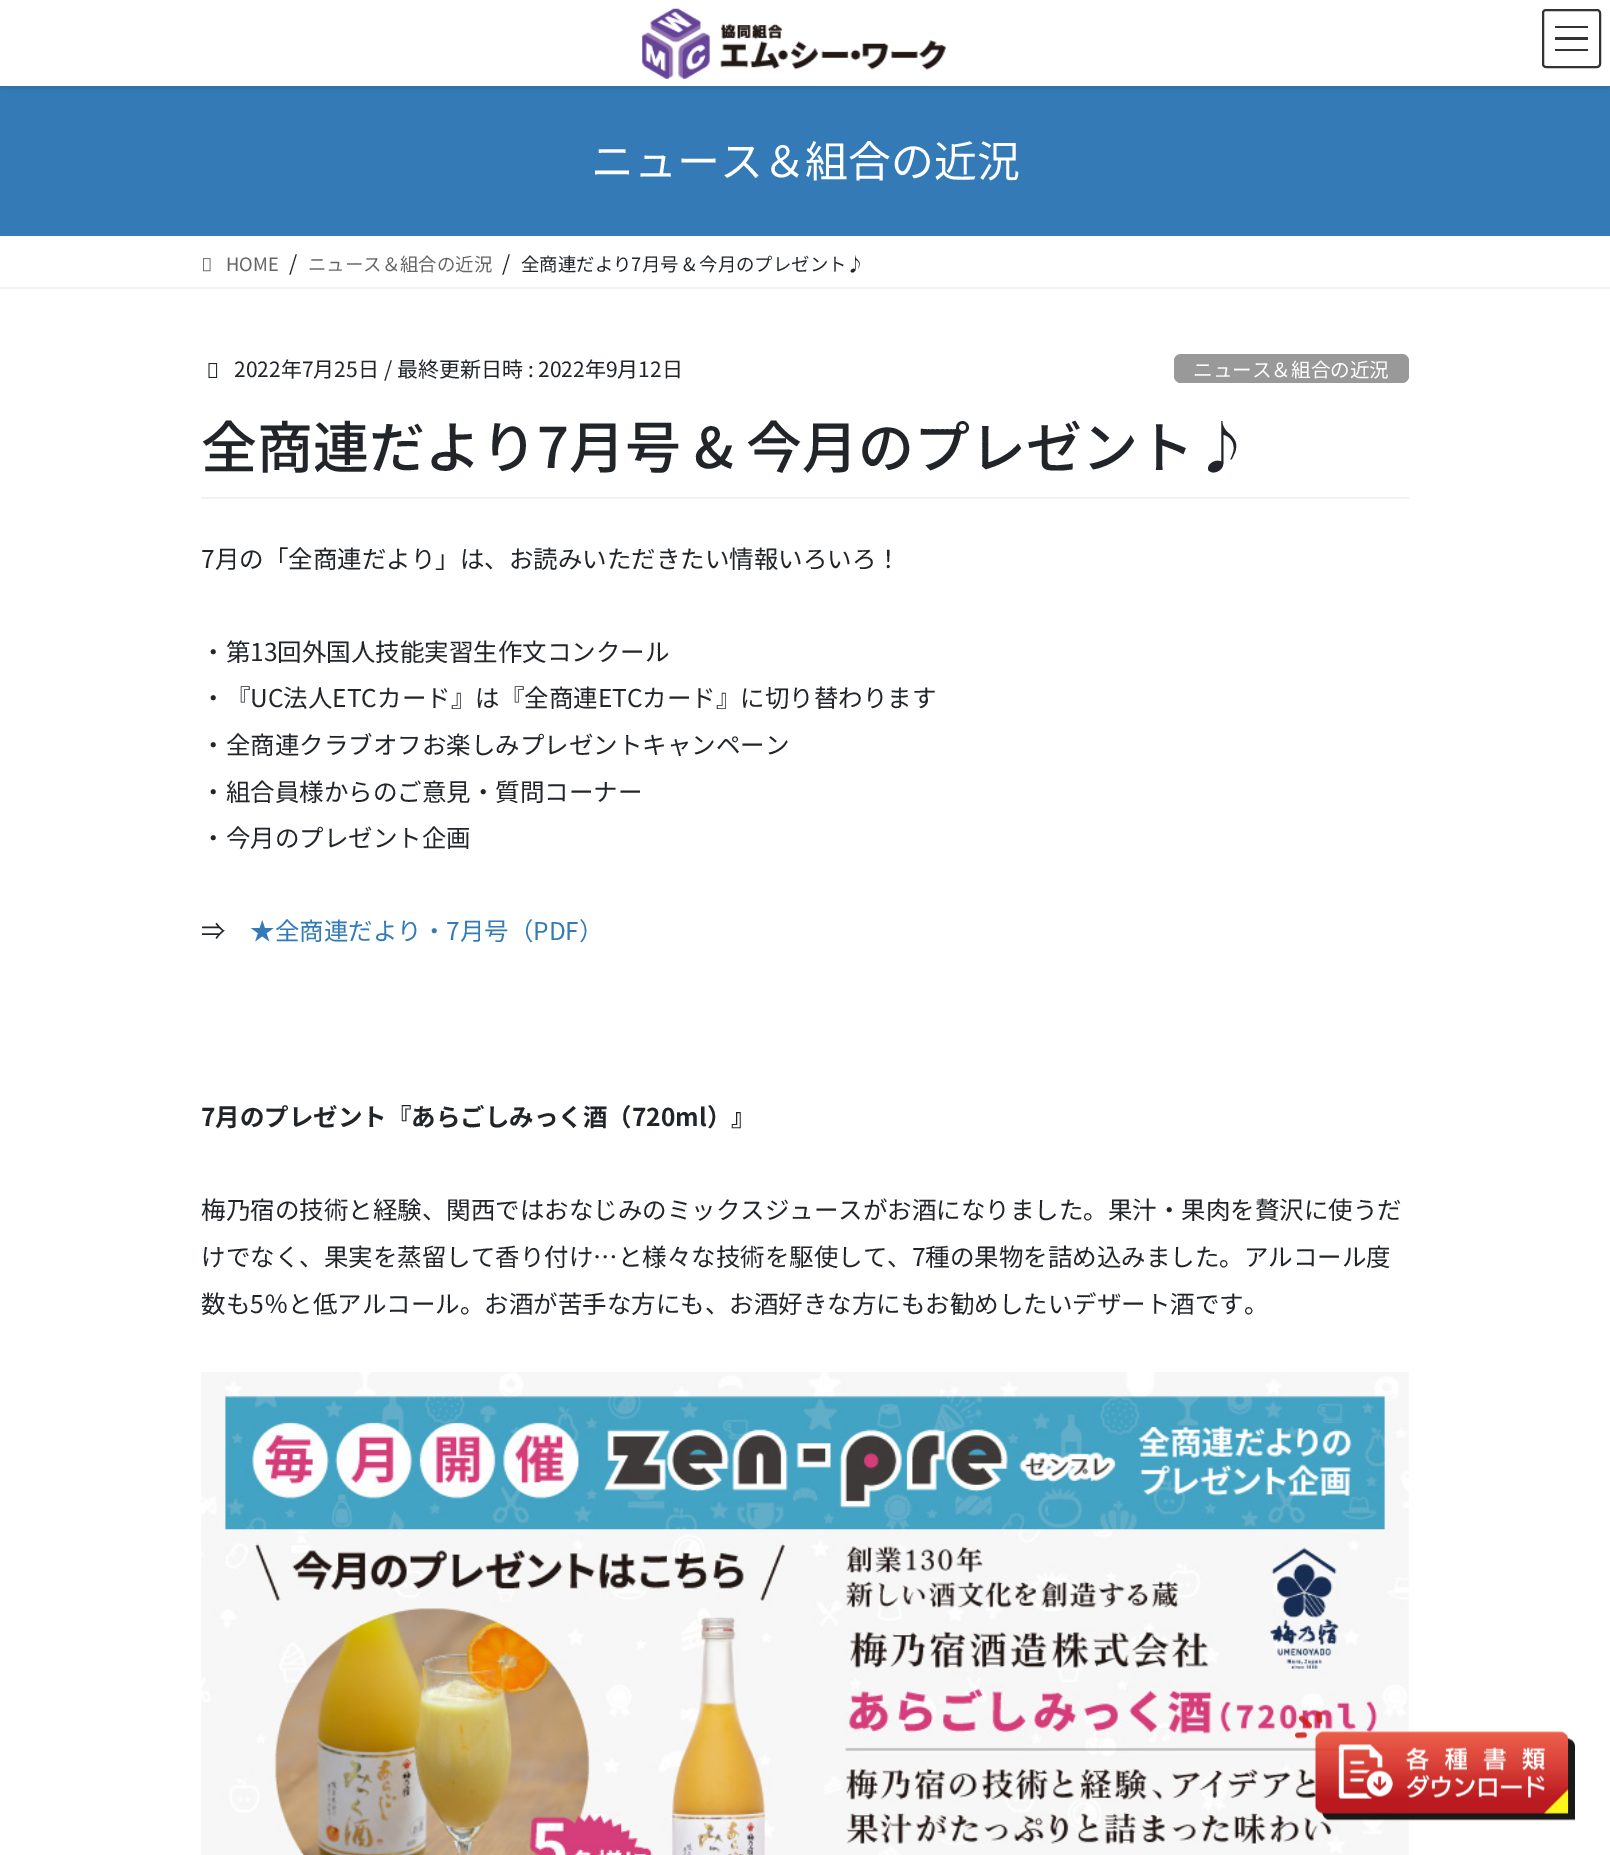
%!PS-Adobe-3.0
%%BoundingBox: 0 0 1610 1855
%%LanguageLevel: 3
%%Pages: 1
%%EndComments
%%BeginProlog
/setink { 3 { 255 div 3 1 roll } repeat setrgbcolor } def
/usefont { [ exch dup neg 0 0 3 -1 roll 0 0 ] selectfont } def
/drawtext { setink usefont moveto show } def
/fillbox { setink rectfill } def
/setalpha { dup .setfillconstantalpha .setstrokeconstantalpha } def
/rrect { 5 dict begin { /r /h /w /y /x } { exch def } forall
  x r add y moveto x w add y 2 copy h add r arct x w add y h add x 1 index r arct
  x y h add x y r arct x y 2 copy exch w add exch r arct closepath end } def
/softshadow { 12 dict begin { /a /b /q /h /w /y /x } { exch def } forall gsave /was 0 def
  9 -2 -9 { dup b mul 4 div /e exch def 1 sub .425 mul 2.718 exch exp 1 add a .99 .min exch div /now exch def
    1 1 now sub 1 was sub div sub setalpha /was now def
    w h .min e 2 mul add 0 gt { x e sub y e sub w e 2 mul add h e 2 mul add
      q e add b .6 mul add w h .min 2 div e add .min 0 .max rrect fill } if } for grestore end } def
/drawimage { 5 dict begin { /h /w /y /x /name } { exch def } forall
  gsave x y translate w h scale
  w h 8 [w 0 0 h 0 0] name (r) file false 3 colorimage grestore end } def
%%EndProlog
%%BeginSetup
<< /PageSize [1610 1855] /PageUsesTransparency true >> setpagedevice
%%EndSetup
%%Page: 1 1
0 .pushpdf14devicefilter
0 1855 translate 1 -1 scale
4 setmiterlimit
0 0 1610 1855 255 255 255 fillbox
0 86 1610 150 51 122 183 fillbox
0 0 0 setink
0 2 1610 86 0 2.5 0.1 softshadow
0 0 1610 86 255 255 255 fillbox
(assets/img1.rgb) 642 8 304 71 drawimage
1555 26 33 2 51 51 51 fillbox
1555 37 33 3 51 51 51 fillbox
1555 49 33 2 51 51 51 fillbox
2 setlinewidth
1543 10 57 57 3 rrect stroke
(ニュース＆組合の近況) 591 177 /NotoSansJP-Regular 42.9 255 255 255 drawtext
0 287 1610 2 242 242 242 fillbox
(assets/img2.rgb) 203 258 8 14 drawimage
(HOME) 226 271 /NotoSansJP-Regular 18.4 102 102 102 drawtext
(/) 289 271 /NotoSansJP-Regular 21 33 37 41 drawtext
(ニュース＆組合の近況) 308 271 /NotoSansJP-Regular 18.4 102 102 102 drawtext
(/) 502 271 /NotoSansJP-Regular 21 33 37 41 drawtext
(全商連だより7月号 & 今月のプレゼント♪) 521 271 /NotoSansJP-Regular 18.4 33 37 41 drawtext
201 497 1208 2 242 242 242 fillbox
(assets/img3.rgb) 208 363 10 15 drawimage
(2022年7月25日) 234 377 /NotoSansJP-Regular 21 33 37 41 drawtext
(/ 最終更新日時 : 2022年9月12日) 384 377 /NotoSansJP-Regular 21 33 37 41 drawtext
153 153 153 setink
1174 354 235 29 7 rrect fill
(ニュース＆組合の近況) 1193 377 /NotoSansJP-Regular 19.6 255 255 255 drawtext
(全商連だより7月号 & 今月のプレゼント♪) 201 468 /NotoSansJP-Medium 56 33 37 41 drawtext
(7月の「全商連だより」は、お読みいただきたい情報いろいろ！) 201 568 /NotoSansJP-Regular 24.5 33 37 41 drawtext
(・第13回外国人技能実習生作文コンクール) 201 661 /NotoSansJP-Regular 24.5 33 37 41 drawtext
(・『UC法人ETCカード』は『全商連ETCカード』に切り替わります) 201 707 /NotoSansJP-Regular 24.5 33 37 41 drawtext
(・全商連クラブオフお楽しみプレゼントキャンペーン) 201 754 /NotoSansJP-Regular 24.5 33 37 41 drawtext
(・組合員様からのご意見・質問コーナー) 201 801 /NotoSansJP-Regular 24.5 33 37 41 drawtext
(・今月のプレゼント企画) 201 847 /NotoSansJP-Regular 24.5 33 37 41 drawtext
(⇒) 201 940 /NotoSansJP-Regular 24.5 33 37 41 drawtext
(★全商連だより・7月号（PDF）) 250 940 /NotoSansJP-Regular 24.5 51 122 183 drawtext
(7月のプレゼント『あらごしみっく酒（720ml）』) 201 1126 /NotoSansJP-Bold 24.5 33 37 41 drawtext
(梅乃宿の技術と経験、関西ではおなじみのミックスジュースがお酒になりました。果汁・果肉を贅沢に使うだ) 201 1219 /NotoSansJP-Regular 24.5 33 37 41 drawtext
(けでなく、果実を蒸留して香り付け…と様々な技術を駆使して、7種の果物を詰め込みました。アルコール度) 201 1266 /NotoSansJP-Regular 24.5 33 37 41 drawtext
(数も5％と低アルコール。お酒が苦手な方にも、お酒好きな方にもお勧めしたいデザート酒です。) 201 1313 /NotoSansJP-Regular 24.5 33 37 41 drawtext
(assets/img4.rgb) 201 1372 1208 483 drawimage
(assets/img5.rgb) 1295 1711 280 110 drawimage
.poppdf14devicefilter showpage
%%EOF
